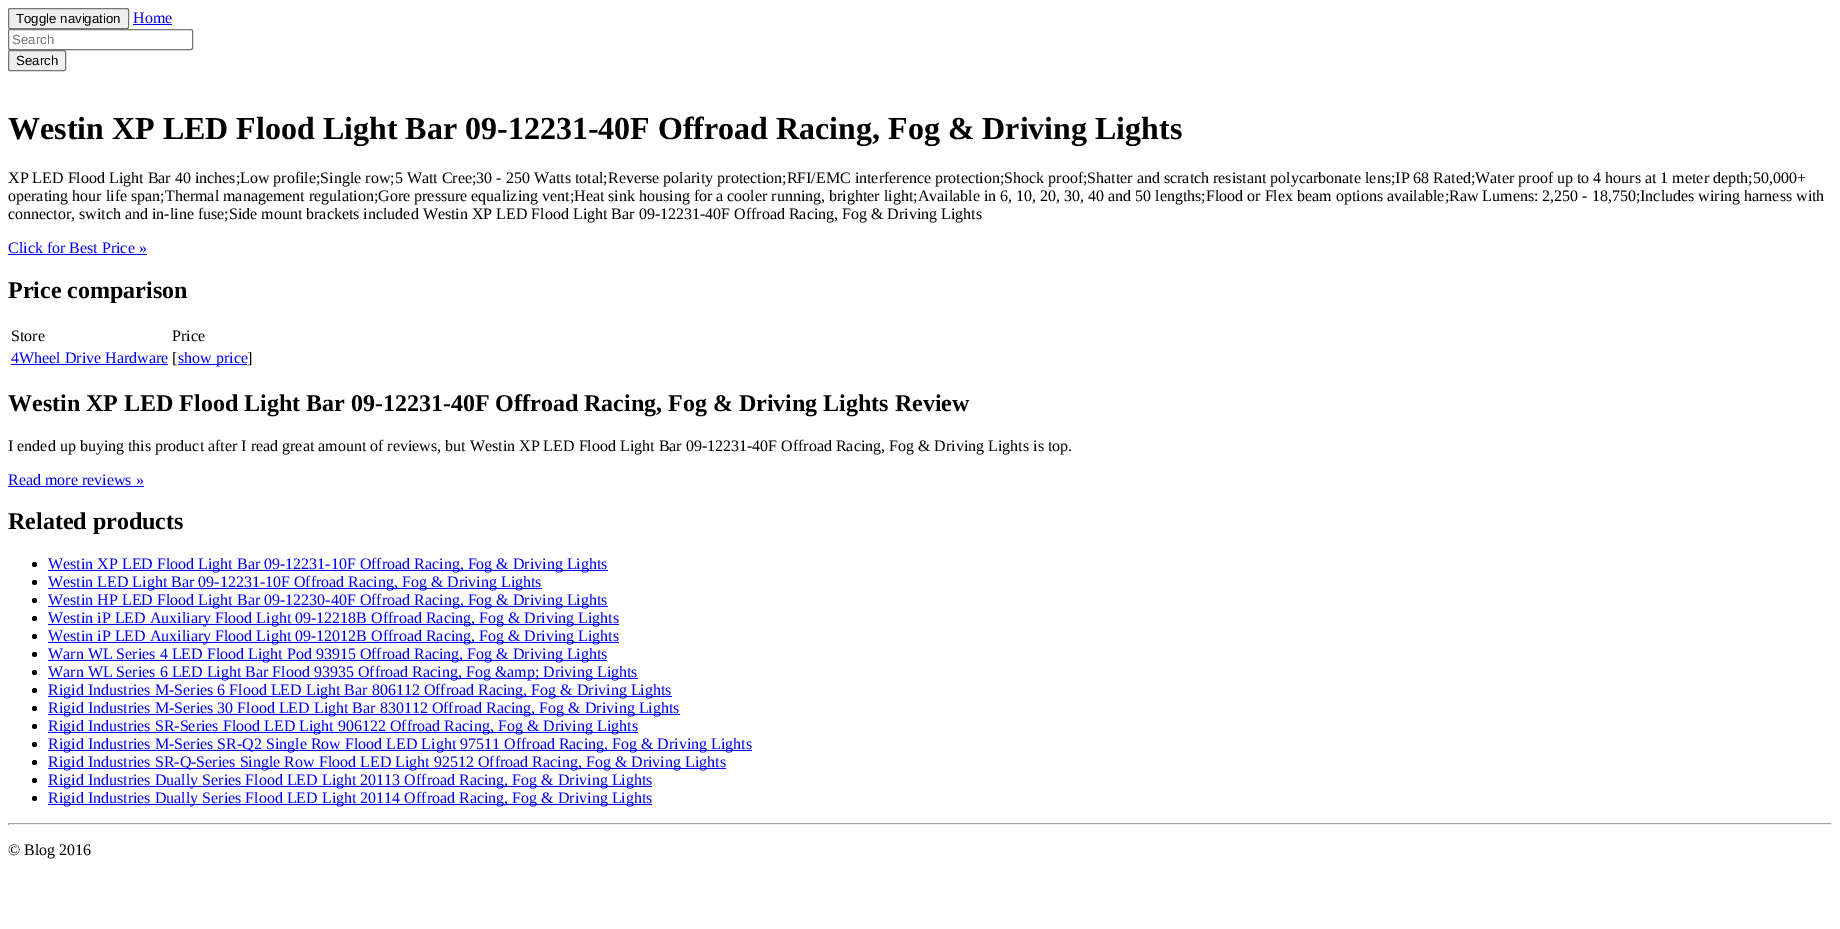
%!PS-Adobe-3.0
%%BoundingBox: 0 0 1840 929
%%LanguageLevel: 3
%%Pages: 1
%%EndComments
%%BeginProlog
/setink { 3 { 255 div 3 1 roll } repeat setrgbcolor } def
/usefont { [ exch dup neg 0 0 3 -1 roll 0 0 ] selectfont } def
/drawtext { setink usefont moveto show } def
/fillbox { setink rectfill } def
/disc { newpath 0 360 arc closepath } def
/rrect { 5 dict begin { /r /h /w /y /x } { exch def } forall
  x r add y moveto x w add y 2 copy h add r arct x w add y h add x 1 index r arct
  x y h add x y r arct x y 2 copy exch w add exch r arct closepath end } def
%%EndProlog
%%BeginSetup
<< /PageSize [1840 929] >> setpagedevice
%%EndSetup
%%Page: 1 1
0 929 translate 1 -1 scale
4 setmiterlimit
0 0 1840 929 255 255 255 fillbox
239 239 239 setink
8.5 8.5 120 20 1.5 rrect gsave fill grestore
118 118 118 setink
stroke
(Toggle navigation) 16 23 /LiberationSans-Regular 13.25 0 0 0 drawtext
(Home) 133 23 /LiberationSerif-Regular 16 0 0 238 drawtext
133 24 39 1 0 0 238 fillbox
118 118 118 setink
8.5 29.5 184 20 1.5 rrect stroke
(Search) 12 44 /LiberationSans-Regular 13.25 117 117 117 drawtext
239 239 239 setink
8.5 50.5 57 20 1.5 rrect gsave fill grestore
118 118 118 setink
stroke
(Search) 16 65 /LiberationSans-Regular 13.25 0 0 0 drawtext
(Westin XP LED Flood Light Bar 09-12231-40F Offroad Racing, Fog & Driving Lights) 8 139 /LiberationSerif-Bold 32 0 0 0 drawtext
(XP LED Flood Light Bar 40 inches;Low profile;Single row;5 Watt Cree;30 - 250 Watts total;Reverse polarity protection;RFI/EMC interference protection;Shock proof;Shatter and scratch resistant polycarbonate lens;IP 68 Rated;Water proof up to 4 hours at 1 meter depth;50,000+) 8 183 /LiberationSerif-Regular 16 0 0 0 drawtext
(operating hour life span;Thermal management regulation;Gore pressure equalizing vent;Heat sink housing for a cooler running, brighter light;Available in 6, 10, 20, 30, 40 and 50 lengths;Flood or Flex beam options available;Raw Lumens: 2,250 - 18,750;Includes wiring harness with) 8 201 /LiberationSerif-Regular 16 0 0 0 drawtext
(connector, switch and in-line fuse;Side mount brackets included Westin XP LED Flood Light Bar 09-12231-40F Offroad Racing, Fog & Driving Lights) 8 219 /LiberationSerif-Regular 16 0 0 0 drawtext
(Click for Best Price ») 8 253 /LiberationSerif-Regular 16 0 0 238 drawtext
8 254 139 1 0 0 238 fillbox
(Price comparison) 8 298 /LiberationSerif-Bold 24 0 0 0 drawtext
(Store) 11 341 /LiberationSerif-Regular 16 0 0 0 drawtext
(Price) 172 341 /LiberationSerif-Regular 16 0 0 0 drawtext
(4Wheel Drive Hardware) 11 363 /LiberationSerif-Regular 16 0 0 238 drawtext
11 364 157 1 0 0 238 fillbox
([) 172 363 /LiberationSerif-Regular 16 0 0 0 drawtext
178 364 69 1 0 0 238 fillbox
(show price) 178 363 /LiberationSerif-Regular 16 0 0 238 drawtext
(]) 247 363 /LiberationSerif-Regular 16 0 0 0 drawtext
(Westin XP LED Flood Light Bar 09-12231-40F Offroad Racing, Fog & Driving Lights Review) 8 411 /LiberationSerif-Bold 24 0 0 0 drawtext
(I ended up buying this product after I read great amount of reviews, but Westin XP LED Flood Light Bar 09-12231-40F Offroad Racing, Fog & Driving Lights is top.) 8 451 /LiberationSerif-Regular 16 0 0 0 drawtext
(Read more reviews ») 8 485 /LiberationSerif-Regular 16 0 0 238 drawtext
8 486 136 1 0 0 238 fillbox
(Related products) 8 529 /LiberationSerif-Bold 24 0 0 0 drawtext
34.5 564.5 2.5 disc fill
48 570 560 1 0 0 238 fillbox
(Westin XP LED Flood Light Bar 09-12231-10F Offroad Racing, Fog & Driving Lights) 48 569 /LiberationSerif-Regular 16 0 0 238 drawtext
0 0 0 setink
34.5 582.5 2.5 disc fill
48 588 494 1 0 0 238 fillbox
(Westin LED Light Bar 09-12231-10F Offroad Racing, Fog & Driving Lights) 48 587 /LiberationSerif-Regular 16 0 0 238 drawtext
0 0 0 setink
34.5 600.5 2.5 disc fill
48 606 560 1 0 0 238 fillbox
(Westin HP LED Flood Light Bar 09-12230-40F Offroad Racing, Fog & Driving Lights) 48 605 /LiberationSerif-Regular 16 0 0 238 drawtext
0 0 0 setink
34.5 618.5 2.5 disc fill
48 624 571 1 0 0 238 fillbox
(Westin iP LED Auxiliary Flood Light 09-12218B Offroad Racing, Fog & Driving Lights) 48 623 /LiberationSerif-Regular 16 0 0 238 drawtext
0 0 0 setink
34.5 636.5 2.5 disc fill
48 642 571 1 0 0 238 fillbox
(Westin iP LED Auxiliary Flood Light 09-12012B Offroad Racing, Fog & Driving Lights) 48 641 /LiberationSerif-Regular 16 0 0 238 drawtext
0 0 0 setink
34.5 654.5 2.5 disc fill
48 660 559 1 0 0 238 fillbox
(Warn WL Series 4 LED Flood Light Pod 93915 Offroad Racing, Fog & Driving Lights) 48 659 /LiberationSerif-Regular 16 0 0 238 drawtext
0 0 0 setink
34.5 672.5 2.5 disc fill
48 678 590 1 0 0 238 fillbox
(Warn WL Series 6 LED Light Bar Flood 93935 Offroad Racing, Fog &amp; Driving Lights) 48 677 /LiberationSerif-Regular 16 0 0 238 drawtext
0 0 0 setink
34.5 690.5 2.5 disc fill
48 696 624 1 0 0 238 fillbox
(Rigid Industries M-Series 6 Flood LED Light Bar 806112 Offroad Racing, Fog & Driving Lights) 48 695 /LiberationSerif-Regular 16 0 0 238 drawtext
0 0 0 setink
34.5 708.5 2.5 disc fill
48 714 632 1 0 0 238 fillbox
(Rigid Industries M-Series 30 Flood LED Light Bar 830112 Offroad Racing, Fog & Driving Lights) 48 713 /LiberationSerif-Regular 16 0 0 238 drawtext
0 0 0 setink
34.5 726.5 2.5 disc fill
48 732 590 1 0 0 238 fillbox
(Rigid Industries SR-Series Flood LED Light 906122 Offroad Racing, Fog & Driving Lights) 48 731 /LiberationSerif-Regular 16 0 0 238 drawtext
0 0 0 setink
34.5 744.5 2.5 disc fill
48 750 704 1 0 0 238 fillbox
(Rigid Industries M-Series SR-Q2 Single Row Flood LED Light 97511 Offroad Racing, Fog & Driving Lights) 48 749 /LiberationSerif-Regular 16 0 0 238 drawtext
0 0 0 setink
34.5 762.5 2.5 disc fill
48 768 678 1 0 0 238 fillbox
(Rigid Industries SR-Q-Series Single Row Flood LED Light 92512 Offroad Racing, Fog & Driving Lights) 48 767 /LiberationSerif-Regular 16 0 0 238 drawtext
0 0 0 setink
34.5 780.5 2.5 disc fill
48 786 604 1 0 0 238 fillbox
(Rigid Industries Dually Series Flood LED Light 20113 Offroad Racing, Fog & Driving Lights) 48 785 /LiberationSerif-Regular 16 0 0 238 drawtext
0 0 0 setink
34.5 798.5 2.5 disc fill
48 804 604 1 0 0 238 fillbox
(Rigid Industries Dually Series Flood LED Light 20114 Offroad Racing, Fog & Driving Lights) 48 803 /LiberationSerif-Regular 16 0 0 238 drawtext
8 823 1824 1 159 159 159 fillbox
1831 823 1 2 238 238 238 fillbox
8 824 1824 1 238 238 238 fillbox
8 823 1 2 159 159 159 fillbox
(© Blog 2016) 8 855 /LiberationSerif-Regular 16 0 0 0 drawtext
showpage
%%EOF
